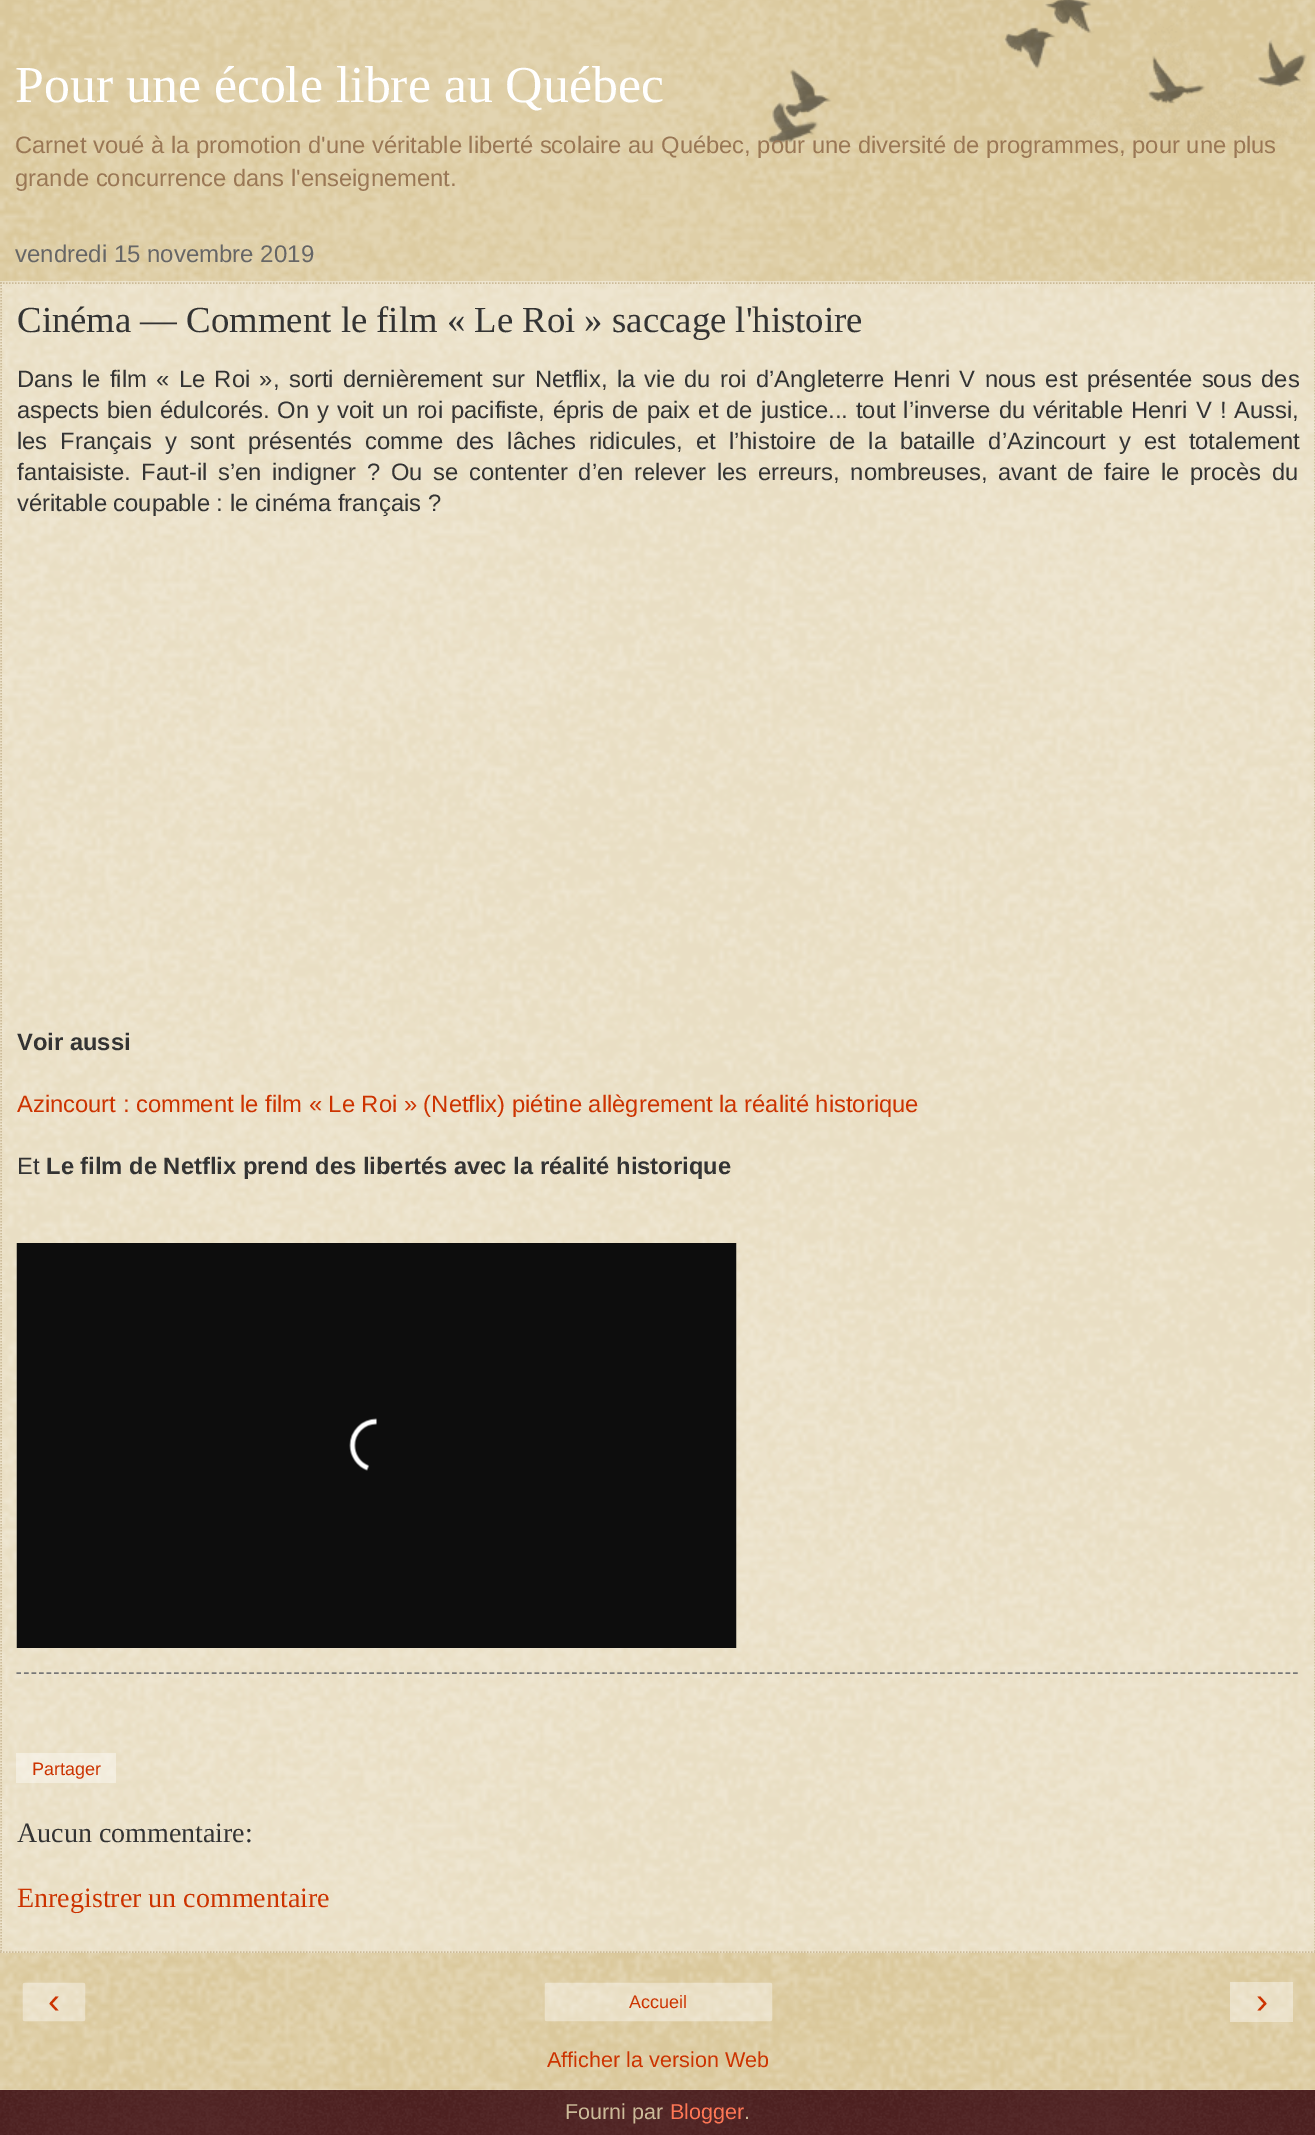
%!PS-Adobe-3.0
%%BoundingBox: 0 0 1315 2135
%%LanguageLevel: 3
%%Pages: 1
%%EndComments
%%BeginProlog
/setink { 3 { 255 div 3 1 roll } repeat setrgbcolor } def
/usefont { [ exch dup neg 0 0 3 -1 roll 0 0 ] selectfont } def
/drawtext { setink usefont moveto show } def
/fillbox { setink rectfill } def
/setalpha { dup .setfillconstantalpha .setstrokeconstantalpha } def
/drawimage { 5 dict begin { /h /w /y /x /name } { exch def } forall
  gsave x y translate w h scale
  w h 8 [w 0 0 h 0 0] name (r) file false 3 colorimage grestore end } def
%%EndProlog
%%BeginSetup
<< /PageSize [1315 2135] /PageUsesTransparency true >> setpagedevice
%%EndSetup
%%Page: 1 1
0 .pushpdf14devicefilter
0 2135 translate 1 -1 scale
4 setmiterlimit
0 0 1315 2135 192 161 84 fillbox
(assets/img1.rgb) 0 0 1315 2090 drawimage
(assets/img2.rgb) 768 0 539 144 drawimage
(Pour une école libre au Québec) 15 102 /LiberationSerif-Regular 51.8 255 255 255 drawtext
(Carnet voué à la promotion d'une véritable liberté scolaire au Québec, pour une diversité de programmes, pour une plus) 15 153 /LiberationSans-Regular 23.75 153 119 85 drawtext
(grande concurrence dans l'enseignement.) 15 186 /LiberationSans-Regular 23.75 153 119 85 drawtext
(vendredi 15 novembre 2019) 15 262 /LiberationSans-Regular 24 102 102 102 drawtext
0.4 setalpha
0 281 1315 1672 255 255 255 fillbox
1 setalpha
204 187 153 setink
1.5 setlinewidth
[1.5 1.5] 0 setdash
0 283 moveto 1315.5 283 lineto stroke
1315 282 moveto 1315 1953 lineto stroke
0 1952 moveto 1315.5 1952 lineto stroke
1 282 moveto 1 1953 lineto stroke
(Cinéma — Comment le film « Le Roi » saccage l'histoire) 17 332 /LiberationSerif-Regular 36.75 51 51 51 drawtext
/LiberationSans-Regular 23.75 usefont
17 387 moveto 2.8 0 32 (Dans le film « Le Roi », sorti dernièrement sur Netflix, la vie du roi d’Angleterre Henri V nous est présentée sous des) widthshow
17 418 moveto 1.45 0 32 (aspects bien édulcorés. On y voit un roi pacifiste, épris de paix et de justice... tout l’inverse du véritable Henri V ! Aussi,) widthshow
17 449 moveto 6.5 0 32 (les Français y sont présentés comme des lâches ridicules, et l’histoire de la bataille d’Azincourt y est totalement) widthshow
17 480 moveto 4 0 32 (fantaisiste. Faut-il s’en indigner ? Ou se contenter d’en relever les erreurs, nombreuses, avant de faire le procès du) widthshow
(véritable coupable : le cinéma français ?) 17 511 /LiberationSans-Regular 23.75 51 51 51 drawtext
(Voir aussi) 17 1050 /LiberationSans-Bold 23.75 51 51 51 drawtext
(Azincourt : comment le film « Le Roi » \(Netflix\) piétine allègrement la réalité historique) 17 1112 /LiberationSans-Regular 23.75 204 51 0 drawtext
(Et) 17 1174 /LiberationSans-Regular 23.75 51 51 51 drawtext
(Le film de Netflix prend des libertés avec la réalité historique) 46 1174 /LiberationSans-Bold 23.75 51 51 51 drawtext
(assets/img3.rgb) 16 1243 721 405 drawimage
119 119 119 setink
[4.5 3.01] 0 setdash
16.5 1673 moveto 1299 1673 lineto stroke
0.4 setalpha
16 1753 100 30 255 255 255 fillbox
1 setalpha
(Partager) 32 1775 /LiberationSans-Regular 18 204 51 0 drawtext
(Aucun commentaire:) 17 1842 /LiberationSerif-Regular 28 51 51 51 drawtext
(Enregistrer un commentaire) 17 1907 /LiberationSerif-Regular 28 204 51 0 drawtext
(assets/img4.rgb) 22 1982 64 40 drawimage
(‹) 48 2013 /LiberationSans-Regular 36 204 51 0 drawtext
(assets/img5.rgb) 544 1982 229 40 drawimage
(Accueil) 629 2008 /LiberationSans-Regular 18 204 51 0 drawtext
0.4 setalpha
1230 1982 63 40 255 255 255 fillbox
1 setalpha
(›) 1256 2013 /LiberationSans-Regular 36 204 51 0 drawtext
(Afficher la version Web) 547 2067 /LiberationSans-Regular 21.6 204 51 0 drawtext
0 2090 1315 45 51 0 0 fillbox
(assets/img6.rgb) 0 2089 1315 46 drawimage
(Fourni par) 565 2119 /LiberationSans-Regular 21.6 204 187 153 drawtext
(Blogger) 670 2119 /LiberationSans-Regular 21.6 255 119 85 drawtext
(.) 744 2119 /LiberationSans-Regular 21.6 204 187 153 drawtext
.poppdf14devicefilter showpage
%%EOF
